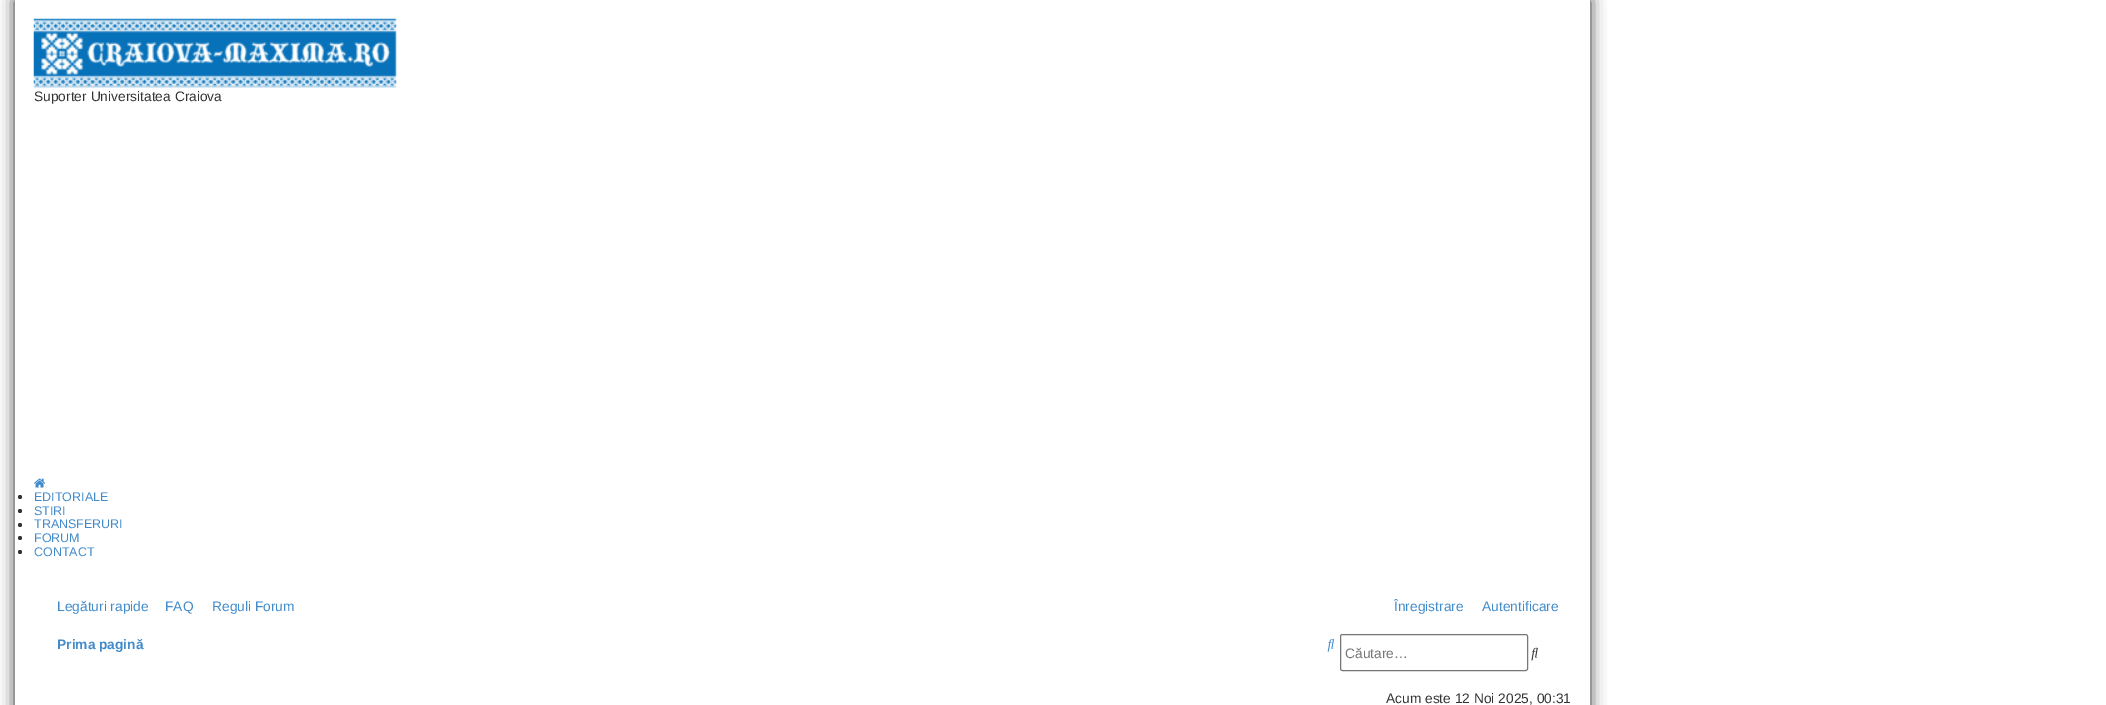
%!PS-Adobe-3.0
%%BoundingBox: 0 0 2106 705
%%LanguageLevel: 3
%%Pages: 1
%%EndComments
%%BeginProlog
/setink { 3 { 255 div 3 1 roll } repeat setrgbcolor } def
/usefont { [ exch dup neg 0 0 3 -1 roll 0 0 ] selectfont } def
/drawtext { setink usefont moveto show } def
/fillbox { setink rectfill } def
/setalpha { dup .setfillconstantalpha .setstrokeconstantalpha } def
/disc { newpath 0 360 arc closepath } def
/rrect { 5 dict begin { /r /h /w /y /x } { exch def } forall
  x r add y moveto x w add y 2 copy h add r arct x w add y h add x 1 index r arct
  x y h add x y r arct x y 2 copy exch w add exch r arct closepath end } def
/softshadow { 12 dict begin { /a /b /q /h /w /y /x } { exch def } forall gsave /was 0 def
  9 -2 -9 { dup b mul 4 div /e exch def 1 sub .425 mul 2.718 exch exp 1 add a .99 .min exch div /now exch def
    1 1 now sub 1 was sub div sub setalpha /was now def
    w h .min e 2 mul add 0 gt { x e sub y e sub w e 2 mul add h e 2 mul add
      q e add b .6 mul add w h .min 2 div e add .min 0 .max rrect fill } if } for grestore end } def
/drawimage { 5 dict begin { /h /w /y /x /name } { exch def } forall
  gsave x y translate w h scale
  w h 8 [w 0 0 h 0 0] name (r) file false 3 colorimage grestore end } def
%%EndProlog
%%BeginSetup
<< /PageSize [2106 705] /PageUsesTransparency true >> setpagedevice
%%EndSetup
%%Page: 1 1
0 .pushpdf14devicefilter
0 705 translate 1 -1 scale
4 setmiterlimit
0 0 2106 705 255 255 255 fillbox
gsave
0 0 moveto 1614 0 lineto 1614 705 lineto 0 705 lineto closepath 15 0 moveto 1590 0 lineto 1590 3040 lineto 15 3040 lineto closepath eoclip newpath
45 45 45 setink
15 0 1575 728 0 7.5 1 softshadow
grestore
(assets/img1.rgb) 33 18 364 70 drawimage
(Suporter Universitatea Craiova) 34 101 /LiberationSans-Regular 13.75 51 51 51 drawtext
(assets/img2.rgb) 34 478 12 10 drawimage
20 497 2 disc fill
(EDITORIALE) 34 501 /LiberationSans-Regular 12.5 66 139 202 drawtext
51 51 51 setink
20 511 2 disc fill
(STIRI) 34 515 /LiberationSans-Regular 12.5 66 139 202 drawtext
51 51 51 setink
20 525 2 disc fill
(TRANSFERURI) 34 528 /LiberationSans-Regular 12.5 66 139 202 drawtext
51 51 51 setink
20 538 2 disc fill
(FORUM) 34 542 /LiberationSans-Regular 12.5 66 139 202 drawtext
51 51 51 setink
20 552 2 disc fill
(CONTACT) 34 556 /LiberationSans-Regular 12.5 66 139 202 drawtext
(Legături rapide) 57 611 /LiberationSans-Regular 13.75 66 139 202 drawtext
(FAQ) 165 611 /LiberationSans-Regular 13.75 66 139 202 drawtext
(Reguli Forum) 212 611 /LiberationSans-Regular 13.75 66 139 202 drawtext
(Înregistrare) 1394 611 /LiberationSans-Regular 13.75 66 139 202 drawtext
(Autentificare) 1482 611 /LiberationSans-Regular 13.75 66 139 202 drawtext
(Prima pagină) 57 649 /LiberationSans-Bold 13.75 66 139 202 drawtext
(assets/img3.rgb) 1327 639 8 13 drawimage
118 118 118 setink
1340.5 634.5 187 36 2 rrect stroke
(Căutare…) 1345 658 /LiberationSans-Regular 13.75 117 117 117 drawtext
(assets/img4.rgb) 1531 647 7 14 drawimage
(Acum este 12 Noi 2025, 00:31) 1386 703 /LiberationSans-Regular 13.75 51 51 51 drawtext
.poppdf14devicefilter showpage
%%EOF
